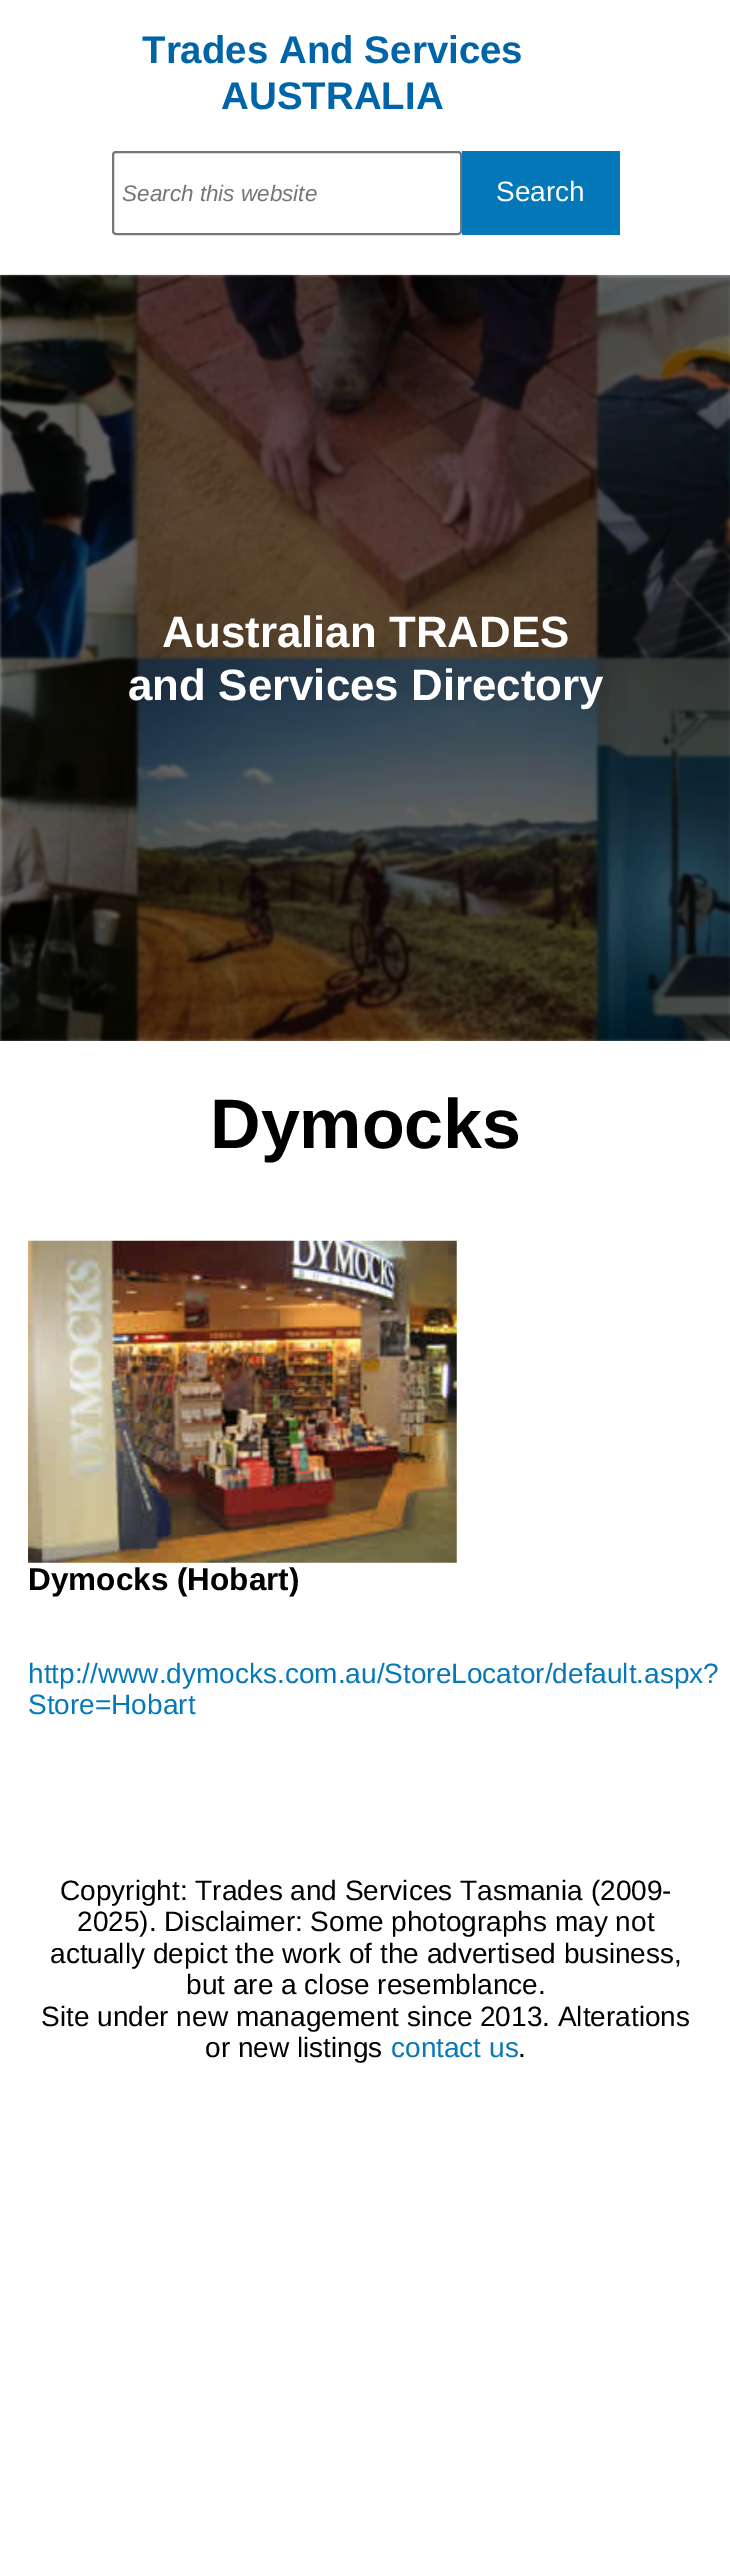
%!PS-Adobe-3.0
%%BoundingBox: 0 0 730 2554
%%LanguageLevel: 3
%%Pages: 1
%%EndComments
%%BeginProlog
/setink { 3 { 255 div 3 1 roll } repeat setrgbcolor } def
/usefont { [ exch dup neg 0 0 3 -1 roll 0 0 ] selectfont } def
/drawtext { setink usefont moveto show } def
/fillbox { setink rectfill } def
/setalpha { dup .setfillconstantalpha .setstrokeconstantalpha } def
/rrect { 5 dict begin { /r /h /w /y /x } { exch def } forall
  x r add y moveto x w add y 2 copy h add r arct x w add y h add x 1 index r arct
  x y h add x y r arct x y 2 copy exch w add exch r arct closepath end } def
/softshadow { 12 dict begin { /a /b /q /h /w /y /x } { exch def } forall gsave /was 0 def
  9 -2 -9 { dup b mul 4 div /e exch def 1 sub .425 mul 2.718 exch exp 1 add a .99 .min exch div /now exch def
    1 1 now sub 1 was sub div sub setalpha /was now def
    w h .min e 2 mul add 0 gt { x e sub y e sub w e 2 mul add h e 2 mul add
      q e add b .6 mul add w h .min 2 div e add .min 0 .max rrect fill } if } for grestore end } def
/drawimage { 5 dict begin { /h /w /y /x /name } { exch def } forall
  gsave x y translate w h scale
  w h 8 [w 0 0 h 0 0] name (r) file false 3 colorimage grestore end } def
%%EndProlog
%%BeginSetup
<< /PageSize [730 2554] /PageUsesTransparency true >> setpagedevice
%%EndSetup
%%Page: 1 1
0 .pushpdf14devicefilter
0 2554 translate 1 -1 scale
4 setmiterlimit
0 0 730 2554 255 255 255 fillbox
(Trades And Services) 142 63 /LiberationSans-Bold 38.5 0 100 169 drawtext
(AUSTRALIA) 221 109 /LiberationSans-Bold 38.5 0 100 169 drawtext
118 118 118 setink
2 setlinewidth
113 152 348 82 3 rrect stroke
(Search this website) 122 201 /LiberationSans-Italic 22.5 117 117 117 drawtext
462 151 158 84 5 120 186 fillbox
(Search) 496 201 /LiberationSans-Regular 28 255 255 255 drawtext
0 275 730 766 154 154 154 fillbox
(assets/img1.rgb) 0 274 730 767 drawimage
gsave
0 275 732 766 rectclip
0 0 0 setink
0 275 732 766 0 2 0.6 softshadow
grestore
(Australian TRADES) 162 647 /LiberationSans-Bold 43.9 255 255 255 drawtext
(and Services Directory) 128 700 /LiberationSans-Bold 43.9 255 255 255 drawtext
(Dymocks) 210 1148 /LiberationSans-Bold 70 0 0 0 drawtext
(assets/img2.rgb) 28 1240 429 323 drawimage
(Dymocks \(Hobart\)) 28 1590 /LiberationSans-Bold 31.5 0 0 0 drawtext
(http://www.dymocks.com.au/StoreLocator/default.aspx?) 28 1683 /LiberationSans-Regular 28 5 120 186 drawtext
(Store=Hobart) 28 1714 /LiberationSans-Regular 28 5 120 186 drawtext
(Copyright: Trades and Services Tasmania \(2009-) 60 1900 /LiberationSans-Regular 28 0 0 0 drawtext
(2025\). Disclaimer: Some photographs may not) 77 1931 /LiberationSans-Regular 28 0 0 0 drawtext
(actually depict the work of the advertised business,) 50 1963 /LiberationSans-Regular 28 0 0 0 drawtext
(but are a close resemblance.) 186 1994 /LiberationSans-Regular 28 0 0 0 drawtext
(Site under new management since 2013. Alterations) 41 2026 /LiberationSans-Regular 28 0 0 0 drawtext
(or new listings) 205 2057 /LiberationSans-Regular 28 0 0 0 drawtext
(contact us) 391 2057 /LiberationSans-Regular 28 5 120 186 drawtext
(.) 518 2057 /LiberationSans-Regular 28 0 0 0 drawtext
.poppdf14devicefilter showpage
%%EOF
